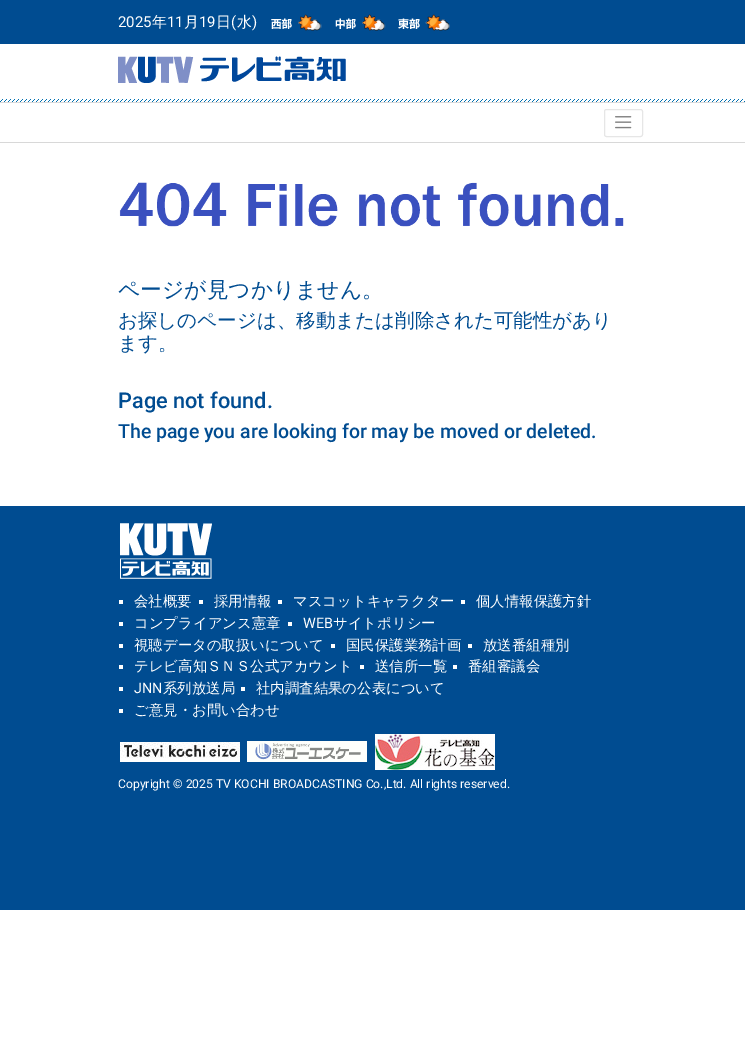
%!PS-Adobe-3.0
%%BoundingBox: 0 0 745 1062
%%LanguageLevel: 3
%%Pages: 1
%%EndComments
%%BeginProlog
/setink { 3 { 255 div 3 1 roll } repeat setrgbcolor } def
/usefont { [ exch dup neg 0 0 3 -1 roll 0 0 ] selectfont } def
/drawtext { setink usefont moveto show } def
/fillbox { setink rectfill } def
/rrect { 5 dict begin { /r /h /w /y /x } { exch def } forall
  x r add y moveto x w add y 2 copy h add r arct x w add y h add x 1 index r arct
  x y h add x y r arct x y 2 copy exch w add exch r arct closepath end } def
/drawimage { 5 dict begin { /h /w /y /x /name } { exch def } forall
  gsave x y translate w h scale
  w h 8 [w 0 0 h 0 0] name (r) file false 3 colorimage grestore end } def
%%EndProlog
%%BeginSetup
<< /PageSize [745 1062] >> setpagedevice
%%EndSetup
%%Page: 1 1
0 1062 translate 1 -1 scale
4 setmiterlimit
0 0 745 1062 255 255 255 fillbox
0 0 745 44 0 76 145 fillbox
(2025) 118 27 /Roboto-Regular 15 255 255 255 drawtext
(年) 152 27 /WenQuanYiZenHei-Medium 15 255 255 255 drawtext
(11) 167 27 /Roboto-Regular 15 255 255 255 drawtext
(月) 184 27 /WenQuanYiZenHei-Medium 15 255 255 255 drawtext
(19) 199 27 /Roboto-Regular 15 255 255 255 drawtext
(日) 216 27 /WenQuanYiZenHei-Medium 15 255 255 255 drawtext
(\() 231 27 /Roboto-Regular 15 255 255 255 drawtext
(水) 237 27 /WenQuanYiZenHei-Medium 15 255 255 255 drawtext
(\)) 252 27 /Roboto-Regular 15 255 255 255 drawtext
(assets/img1.rgb) 271 14 179 17 drawimage
(assets/img2.rgb) 118 56 228 27 drawimage
(assets/img3.rgb) 0 99 745 3 drawimage
0 102 745 1 216 216 216 fillbox
0 142 745 1 216 216 216 fillbox
230 230 230 setink
604.5 109.5 38 27 2 rrect stroke
(assets/img4.rgb) 615 116 17 13 drawimage
(assets/img5.rgb) 119 182 505 45 drawimage
(ページが見つかりません。) 118 297 /WenQuanYiZenHei-Medium 21.75 0 76 145 drawtext
(お探しのページは、移動または削除された可能性があり) 118 327 /WenQuanYiZenHei-Medium 19.5 0 76 145 drawtext
(ます。) 118 350 /WenQuanYiZenHei-Medium 19.5 0 76 145 drawtext
(Page not found.) 118 408 /Roboto-Medium 21.75 0 76 145 drawtext
(The page you are looking for may be moved or deleted.) 118 438 /Roboto-Medium 19.5 0 76 145 drawtext
0 506 745 404 0 76 145 fillbox
(assets/img6.rgb) 120 523 92 56 drawimage
119 600 4 4 255 255 255 fillbox
(会社概要) 134 606 /WenQuanYiZenHei-Medium 14.4 255 255 255 drawtext
199 600 4 4 255 255 255 fillbox
(採用情報) 214 606 /WenQuanYiZenHei-Medium 14.4 255 255 255 drawtext
278 600 4 4 255 255 255 fillbox
(マスコットキャラクター) 293 606 /WenQuanYiZenHei-Medium 14.4 255 255 255 drawtext
461 600 4 4 255 255 255 fillbox
(個人情報保護方針) 476 606 /WenQuanYiZenHei-Medium 14.4 255 255 255 drawtext
119 622 4 4 255 255 255 fillbox
(コンプライアンス憲章) 134 628 /WenQuanYiZenHei-Medium 14.4 255 255 255 drawtext
288 622 4 4 255 255 255 fillbox
(WEB) 303 628 /Roboto-Regular 14.4 255 255 255 drawtext
(サイトポリシー) 333 628 /WenQuanYiZenHei-Medium 14.4 255 255 255 drawtext
119 644 4 4 255 255 255 fillbox
(視聴データの取扱いについて) 134 650 /WenQuanYiZenHei-Medium 14.4 255 255 255 drawtext
331 644 4 4 255 255 255 fillbox
(国民保護業務計画) 346 650 /WenQuanYiZenHei-Medium 14.4 255 255 255 drawtext
468 644 4 4 255 255 255 fillbox
(放送番組種別) 483 650 /WenQuanYiZenHei-Medium 14.4 255 255 255 drawtext
119 665 4 4 255 255 255 fillbox
(テレビ高知ＳＮＳ公式アカウント) 134 671 /WenQuanYiZenHei-Medium 14.4 255 255 255 drawtext
360 665 4 4 255 255 255 fillbox
(送信所一覧) 375 671 /WenQuanYiZenHei-Medium 14.4 255 255 255 drawtext
453 665 4 4 255 255 255 fillbox
(番組審議会) 468 671 /WenQuanYiZenHei-Medium 14.4 255 255 255 drawtext
119 687 4 4 255 255 255 fillbox
(JNN) 134 693 /Roboto-Regular 14.4 255 255 255 drawtext
(系列放送局) 163 693 /WenQuanYiZenHei-Medium 14.4 255 255 255 drawtext
241 687 4 4 255 255 255 fillbox
(社内調査結果の公表について) 256 693 /WenQuanYiZenHei-Medium 14.4 255 255 255 drawtext
119 709 4 4 255 255 255 fillbox
(ご意見・お問い合わせ) 134 715 /WenQuanYiZenHei-Medium 14.4 255 255 255 drawtext
(assets/img7.rgb) 120 742 120 20 drawimage
(assets/img8.rgb) 247 741 120 21 drawimage
(assets/img9.rgb) 375 734 120 36 drawimage
(Copyright © 2025 TV KOCHI BROADCASTING Co.,Ltd. All rights reserved.) 118 788 /Roboto-Regular 12.15 255 255 255 drawtext
showpage
%%EOF
